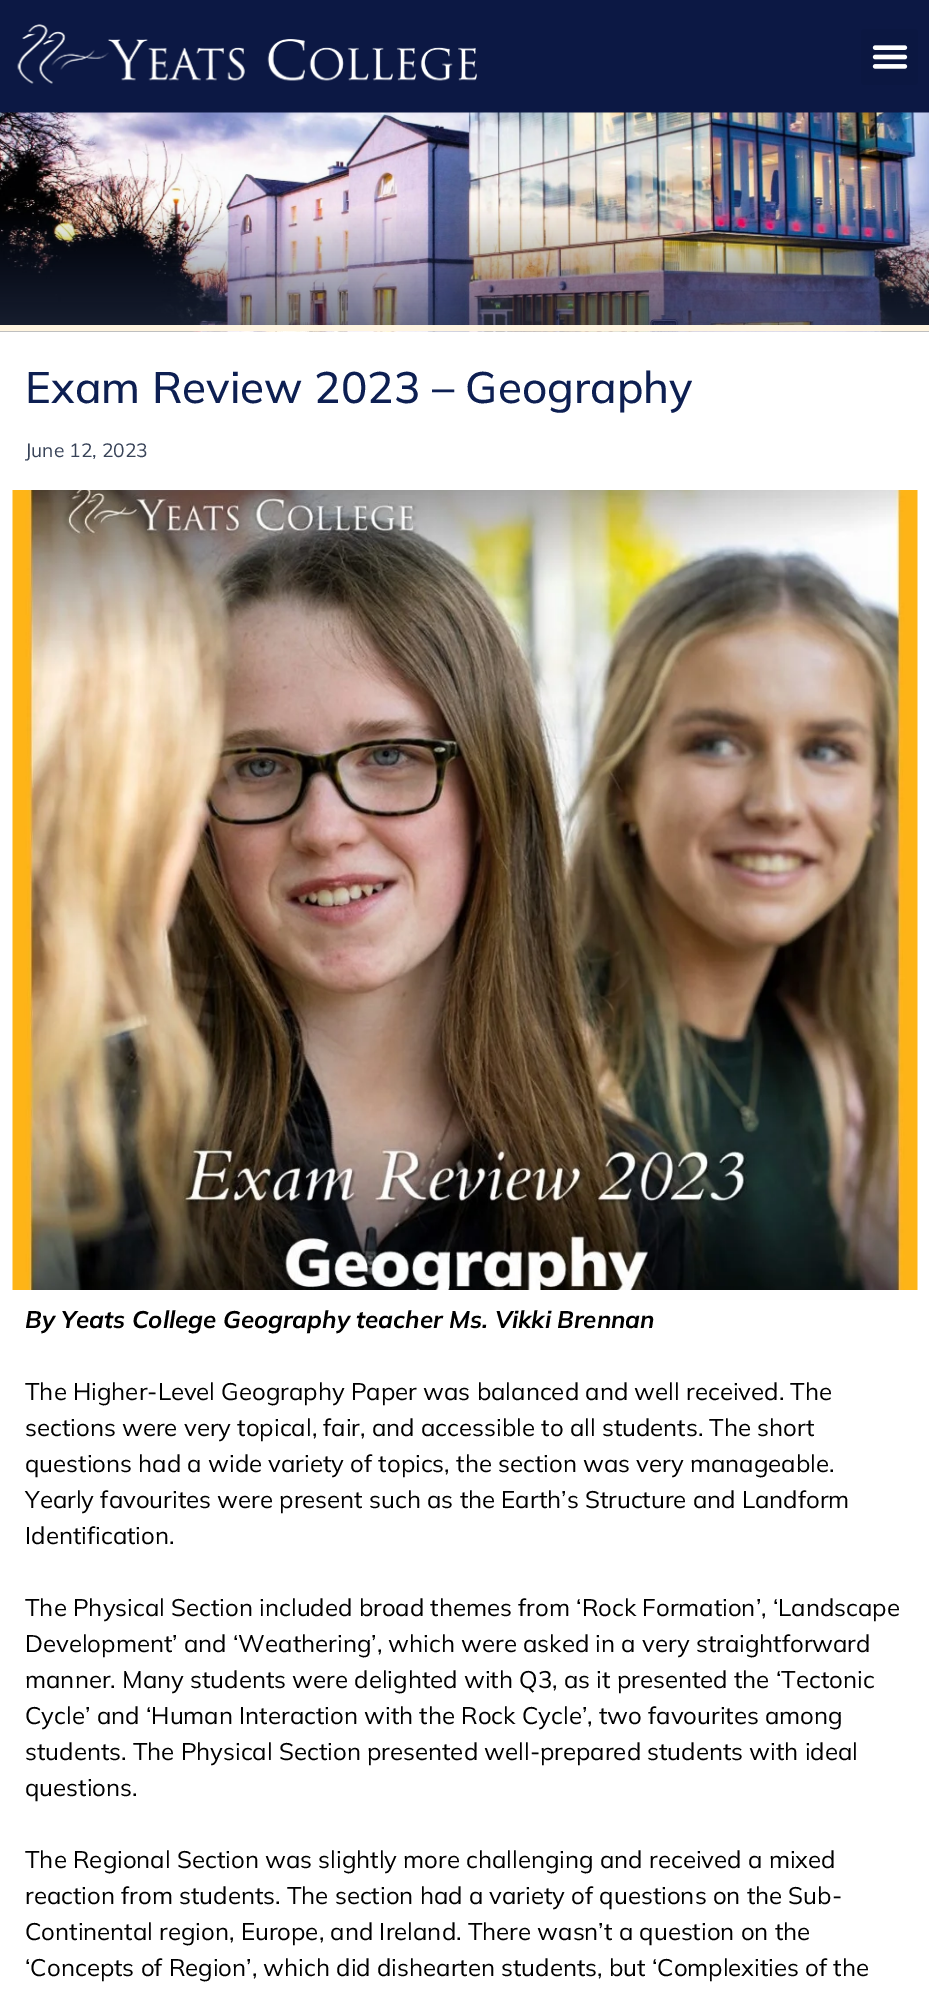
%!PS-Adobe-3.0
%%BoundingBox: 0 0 929 1999
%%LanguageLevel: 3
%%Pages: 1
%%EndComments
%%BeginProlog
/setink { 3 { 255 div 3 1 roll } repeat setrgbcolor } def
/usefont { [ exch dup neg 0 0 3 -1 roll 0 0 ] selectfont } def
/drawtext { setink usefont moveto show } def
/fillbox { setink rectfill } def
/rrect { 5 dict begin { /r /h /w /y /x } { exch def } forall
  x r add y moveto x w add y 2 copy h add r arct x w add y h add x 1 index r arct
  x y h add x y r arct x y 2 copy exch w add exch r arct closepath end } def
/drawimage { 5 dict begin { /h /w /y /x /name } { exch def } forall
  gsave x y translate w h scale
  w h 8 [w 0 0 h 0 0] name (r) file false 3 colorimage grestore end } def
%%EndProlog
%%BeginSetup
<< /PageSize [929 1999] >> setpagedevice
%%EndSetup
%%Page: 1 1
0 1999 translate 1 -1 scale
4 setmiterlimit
0 0 929 1999 255 255 255 fillbox
0 0 929 113 12 24 68 fillbox
(assets/img1.rgb) 17 24 460 60 drawimage
11 23 65 setink
861 29 57 56 4 rrect fill
(assets/img2.rgb) 872 45 36 24 drawimage
(assets/img3.rgb) 0 112 929 220 drawimage
0 325 929 6 255 245 225 fillbox
(Exam Review 2023 – Geography) 25 403 /Mulish-Medium 44 13 31 82 drawtext
(June 12, 2023) 25 457 /Mulish-Regular 19.25 56 67 88 drawtext
(assets/img4.rgb) 12 490 906 800 drawimage
(By Yeats College Geography teacher Ms. Vikki Brennan) 25 1328 /Mulish-BoldItalic 24 0 0 0 drawtext
(The Higher-Level Geography Paper was balanced and well received. The) 25 1400 /Mulish-Regular 24 0 0 0 drawtext
(sections were very topical, fair, and accessible to all students. The short) 25 1436 /Mulish-Regular 24 0 0 0 drawtext
(questions had a wide variety of topics, the section was very manageable.) 25 1472 /Mulish-Regular 24 0 0 0 drawtext
(Yearly favourites were present such as the Earth’s Structure and Landform) 25 1508 /Mulish-Regular 24 0 0 0 drawtext
(Identification.) 25 1544 /Mulish-Regular 24 0 0 0 drawtext
(The Physical Section included broad themes from ‘Rock Formation’, ‘Landscape) 25 1616 /Mulish-Regular 24 0 0 0 drawtext
(Development’ and ‘Weathering’, which were asked in a very straightforward) 25 1652 /Mulish-Regular 24 0 0 0 drawtext
(manner. Many students were delighted with Q3, as it presented the ‘Tectonic) 25 1688 /Mulish-Regular 24 0 0 0 drawtext
(Cycle’ and ‘Human Interaction with the Rock Cycle’, two favourites among) 25 1724 /Mulish-Regular 24 0 0 0 drawtext
(students. The Physical Section presented well-prepared students with ideal) 25 1760 /Mulish-Regular 24 0 0 0 drawtext
(questions.) 25 1796 /Mulish-Regular 24 0 0 0 drawtext
(The Regional Section was slightly more challenging and received a mixed) 25 1868 /Mulish-Regular 24 0 0 0 drawtext
(reaction from students. The section had a variety of questions on the Sub-) 25 1904 /Mulish-Regular 24 0 0 0 drawtext
(Continental region, Europe, and Ireland. There wasn’t a question on the) 25 1940 /Mulish-Regular 24 0 0 0 drawtext
(‘Concepts of Region’, which did dishearten students, but ‘Complexities of the) 25 1976 /Mulish-Regular 24 0 0 0 drawtext
showpage
%%EOF
